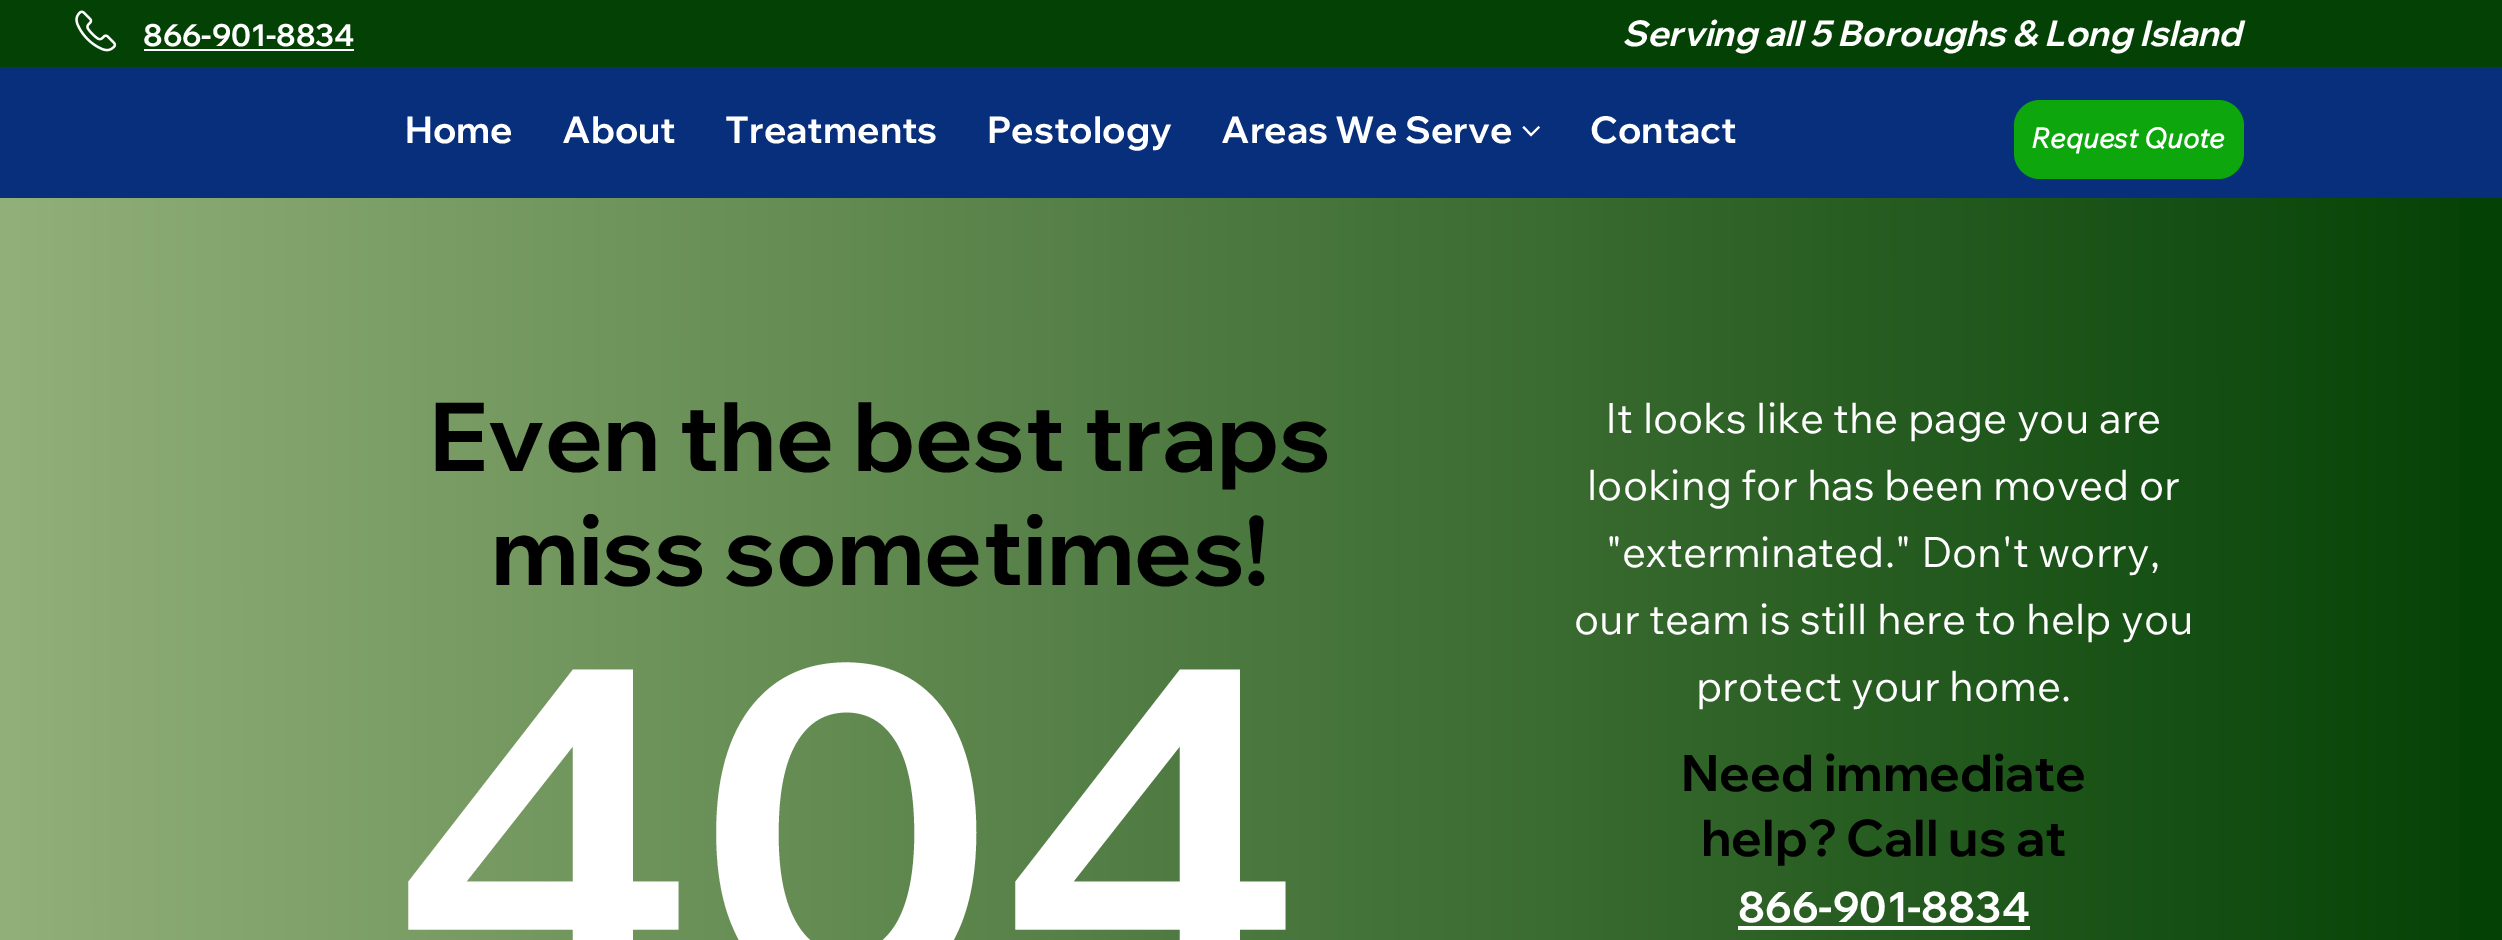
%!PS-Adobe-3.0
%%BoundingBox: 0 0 2502 940
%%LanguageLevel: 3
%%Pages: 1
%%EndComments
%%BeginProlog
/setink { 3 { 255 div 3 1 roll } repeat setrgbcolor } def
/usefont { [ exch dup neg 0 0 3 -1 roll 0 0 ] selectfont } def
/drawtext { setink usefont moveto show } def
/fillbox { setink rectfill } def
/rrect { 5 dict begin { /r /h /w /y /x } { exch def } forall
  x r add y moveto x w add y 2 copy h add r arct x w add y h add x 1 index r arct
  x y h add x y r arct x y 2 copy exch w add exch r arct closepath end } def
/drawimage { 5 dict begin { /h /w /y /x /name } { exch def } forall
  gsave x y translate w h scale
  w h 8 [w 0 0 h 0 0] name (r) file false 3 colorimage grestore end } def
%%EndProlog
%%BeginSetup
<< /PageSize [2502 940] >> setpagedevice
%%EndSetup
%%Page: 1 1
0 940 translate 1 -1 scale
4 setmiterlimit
0 0 2502 940 4 65 4 fillbox
(assets/img1.rgb) 75 10 42 42 drawimage
(866-901-8834) 143 46 /WixMadeforDisplay-Bold 30.5 255 255 255 drawtext
144 49 210 2 255 255 255 fillbox
(Serving all 5 Boroughs & Long Island) 1622 46 /WixMadeforDisplay-BoldItalic 35.5 255 255 255 drawtext
0 67 2502 131 8 47 123 fillbox
(Home) 405 143 /WixMadeforDisplay-Bold 37 255 255 255 drawtext
(About) 562 143 /WixMadeforDisplay-Bold 37 255 255 255 drawtext
(Treatments) 725 143 /WixMadeforDisplay-Bold 37 255 255 255 drawtext
(Pestology) 987 143 /WixMadeforDisplay-Bold 37 255 255 255 drawtext
(Areas We Serve) 1221 143 /WixMadeforDisplay-Bold 37 255 255 255 drawtext
1531 136.5 moveto 1540 127.5 lineto 1538.5 126 lineto 1531 133.5 lineto 1524 126 lineto 1522.5 127.5 lineto closepath fill
(Contact) 1590 143 /WixMadeforDisplay-Bold 37 255 255 255 drawtext
13 167 13 setink
2014 100 230 79 26 rrect fill
(Request Quote) 2031 148 /WixMadeforText-BoldItalic 27.75 255 255 255 drawtext
gsave 0 198 moveto 2459 198 lineto 2459 940 lineto 0 940 lineto closepath clip newpath
<< /ShadingType 2 /ColorSpace /DeviceRGB /Coords [0 669 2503 668] /Extend [true true] /Function << /FunctionType 2 /Domain [0 1] /C0 [0.573 0.69 0.475] /C1 [0.016 0.255 0.016] /N 1 >> >> shfill grestore
(Even the best traps) 429 471 /WixMadeforDisplay-Bold 95.5 0 0 0 drawtext
(miss sometimes!) 491 585 /WixMadeforDisplay-Bold 95.5 0 0 0 drawtext
(404) 391 996 /WixMadeforDisplay-Bold 459 255 255 255 drawtext
(It looks like the page you are) 1605 433 /WixMadeforText-Regular 42 255 255 255 drawtext
(looking for has been moved or) 1587 500 /WixMadeforText-Regular 42 255 255 255 drawtext
("exterminated." Don't worry,) 1606 567 /WixMadeforText-Regular 42 255 255 255 drawtext
(our team is still here to help you) 1574 634 /WixMadeforText-Regular 42 255 255 255 drawtext
(protect your home.) 1696 701 /WixMadeforText-Regular 42 255 255 255 drawtext
(Need immediate) 1681 791 /WixMadeforDisplay-Bold 50.5 0 0 0 drawtext
(help? Call us at) 1701 856 /WixMadeforDisplay-Bold 50.5 0 0 0 drawtext
(866-901-8834) 1738 922 /WixMadeforDisplay-Bold 42 255 255 255 drawtext
1738 926 292 4 255 255 255 fillbox
showpage
%%EOF
